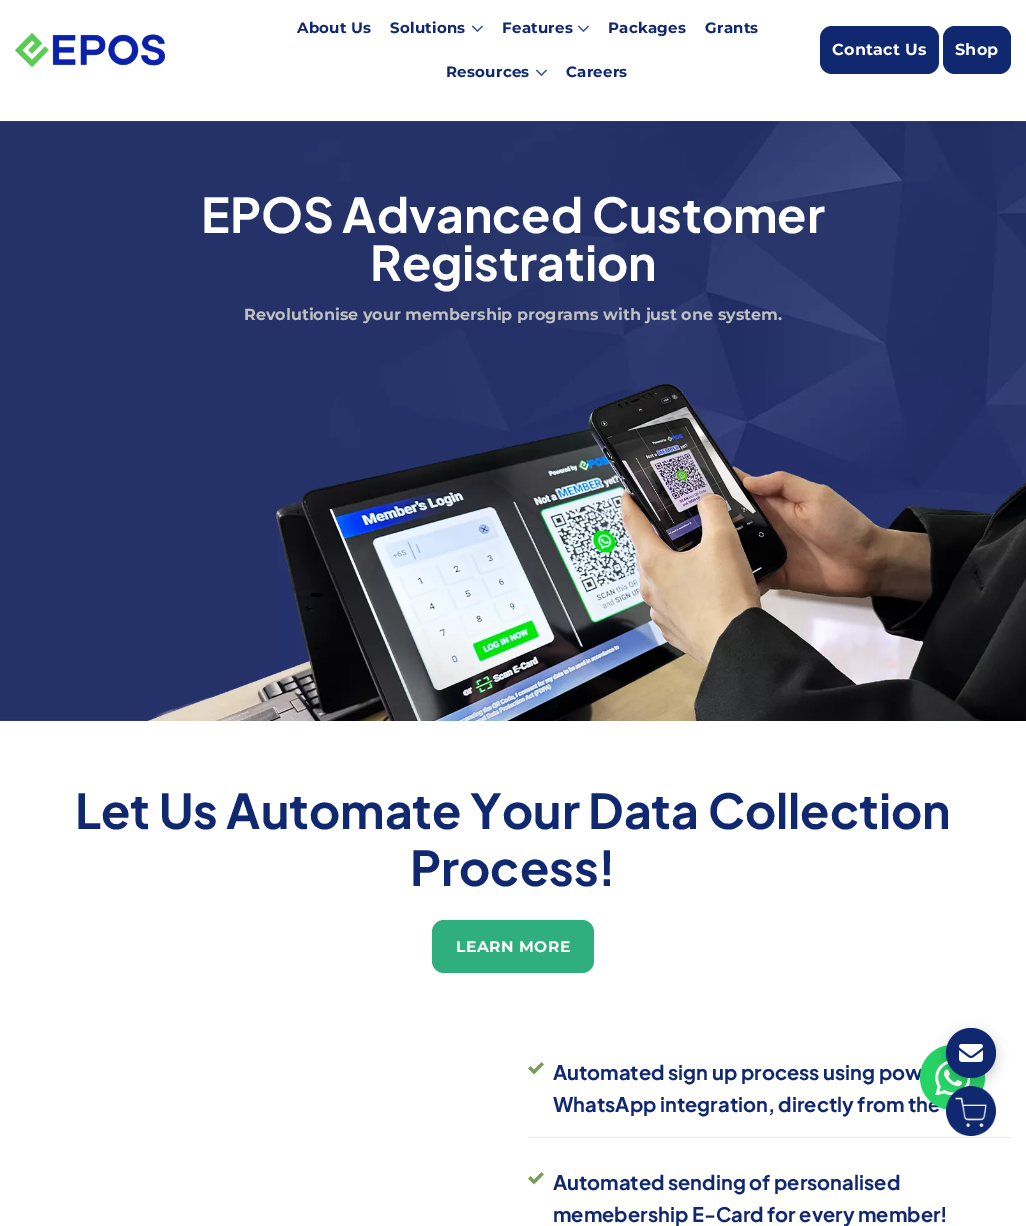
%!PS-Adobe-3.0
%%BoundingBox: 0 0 1026 1226
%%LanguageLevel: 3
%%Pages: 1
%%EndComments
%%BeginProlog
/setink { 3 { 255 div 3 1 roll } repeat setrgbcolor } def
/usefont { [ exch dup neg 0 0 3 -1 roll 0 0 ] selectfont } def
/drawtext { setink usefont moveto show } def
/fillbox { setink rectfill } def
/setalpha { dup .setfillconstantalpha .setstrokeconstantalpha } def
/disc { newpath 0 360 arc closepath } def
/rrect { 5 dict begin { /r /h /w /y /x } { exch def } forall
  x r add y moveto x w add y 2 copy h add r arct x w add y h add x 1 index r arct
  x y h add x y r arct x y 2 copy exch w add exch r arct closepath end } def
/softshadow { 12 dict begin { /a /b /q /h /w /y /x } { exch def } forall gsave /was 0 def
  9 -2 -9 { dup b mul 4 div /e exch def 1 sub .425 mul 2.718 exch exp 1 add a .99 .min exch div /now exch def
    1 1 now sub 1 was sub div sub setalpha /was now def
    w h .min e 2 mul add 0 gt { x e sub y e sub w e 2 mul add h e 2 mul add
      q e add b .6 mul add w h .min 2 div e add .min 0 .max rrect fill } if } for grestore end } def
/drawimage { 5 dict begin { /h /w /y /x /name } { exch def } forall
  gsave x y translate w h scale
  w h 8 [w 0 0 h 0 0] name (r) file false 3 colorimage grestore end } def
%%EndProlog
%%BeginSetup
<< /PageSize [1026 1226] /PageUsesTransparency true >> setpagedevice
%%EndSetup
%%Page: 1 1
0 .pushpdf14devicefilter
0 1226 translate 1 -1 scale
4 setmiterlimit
0 0 1026 1226 255 255 255 fillbox
(assets/img1.rgb) 15 33 150 34 drawimage
/Montserrat-Bold 15 usefont
16 40 112 setink
297 33 moveto 0.25 0 (About Us) ashow
390 33 moveto 0.25 0 (Solutions) ashow
(assets/img2.rgb) 471 25 12 7 drawimage
502 33 moveto 0.25 0 (Features) ashow
(assets/img2.rgb) 577 25 12 7 drawimage
608 33 moveto 0.25 0 (Packages) ashow
705 33 moveto 0.25 0 (Grants) ashow
446 77 moveto 0.25 0 (Resources) ashow
(assets/img2.rgb) 535 69 12 7 drawimage
566 77 moveto 0.25 0 (Careers) ashow
820 26 119 48 12 rrect fill
/Montserrat-Bold 16 usefont
255 255 255 setink
832 55 moveto 0.25 0 (Contact Us) ashow
16 40 112 setink
943 26 68 48 12 rrect fill
255 255 255 setink
955 55 moveto 0.25 0 (Shop) ashow
(assets/img3.rgb) 0 121 1026 600 drawimage
(EPOS Advanced Customer) 201 233 /PlusJakartaSans-Bold 48 255 255 255 drawtext
(Registration) 370 281 /PlusJakartaSans-Bold 48 255 255 255 drawtext
(Revolutionise your membership programs with just one system.) 244 320 /Montserrat-Bold 16 192 192 192 drawtext
(Let Us Automate Your Data Collection) 75 829 /PlusJakartaSans-Bold 48 16 40 112 drawtext
(Process!) 410 886 /PlusJakartaSans-Bold 48 16 40 112 drawtext
46 175 125 setink
432 920 162 53 12 rrect fill
/Montserrat-Bold 15.5 usefont
255 255 255 setink
456 952 moveto 0.5 0 (LEARN MORE) ashow
528 1137 483 1 236 236 236 fillbox
(assets/img4.rgb) 528 1062 16 13 drawimage
(Automated sign up process using pow) 553 1080 /PlusJakartaSans-Bold 20 16 40 112 drawtext
(WhatsApp integration, directly from the) 553 1112 /PlusJakartaSans-Bold 20 16 40 112 drawtext
(assets/img4.rgb) 528 1172 16 13 drawimage
(Automated sending of personalised) 553 1190 /PlusJakartaSans-Bold 20 16 40 112 drawtext
(memebership E-Card for every member!) 553 1222 /PlusJakartaSans-Bold 20 16 40 112 drawtext
38 212 102 setink
952.5 1077.5 32.5 disc fill
(assets/img7.rgb) 935 1060 35 35 drawimage
(assets/img5.rgb) 946 1086 50 50 drawimage
0 0 0 setink
946 1032 50 50 25 6 0.2 softshadow
16 40 112 setink
971 1053 25 disc fill
(assets/img6.rgb) 959 1044 24 18 drawimage
.poppdf14devicefilter showpage
%%EOF
